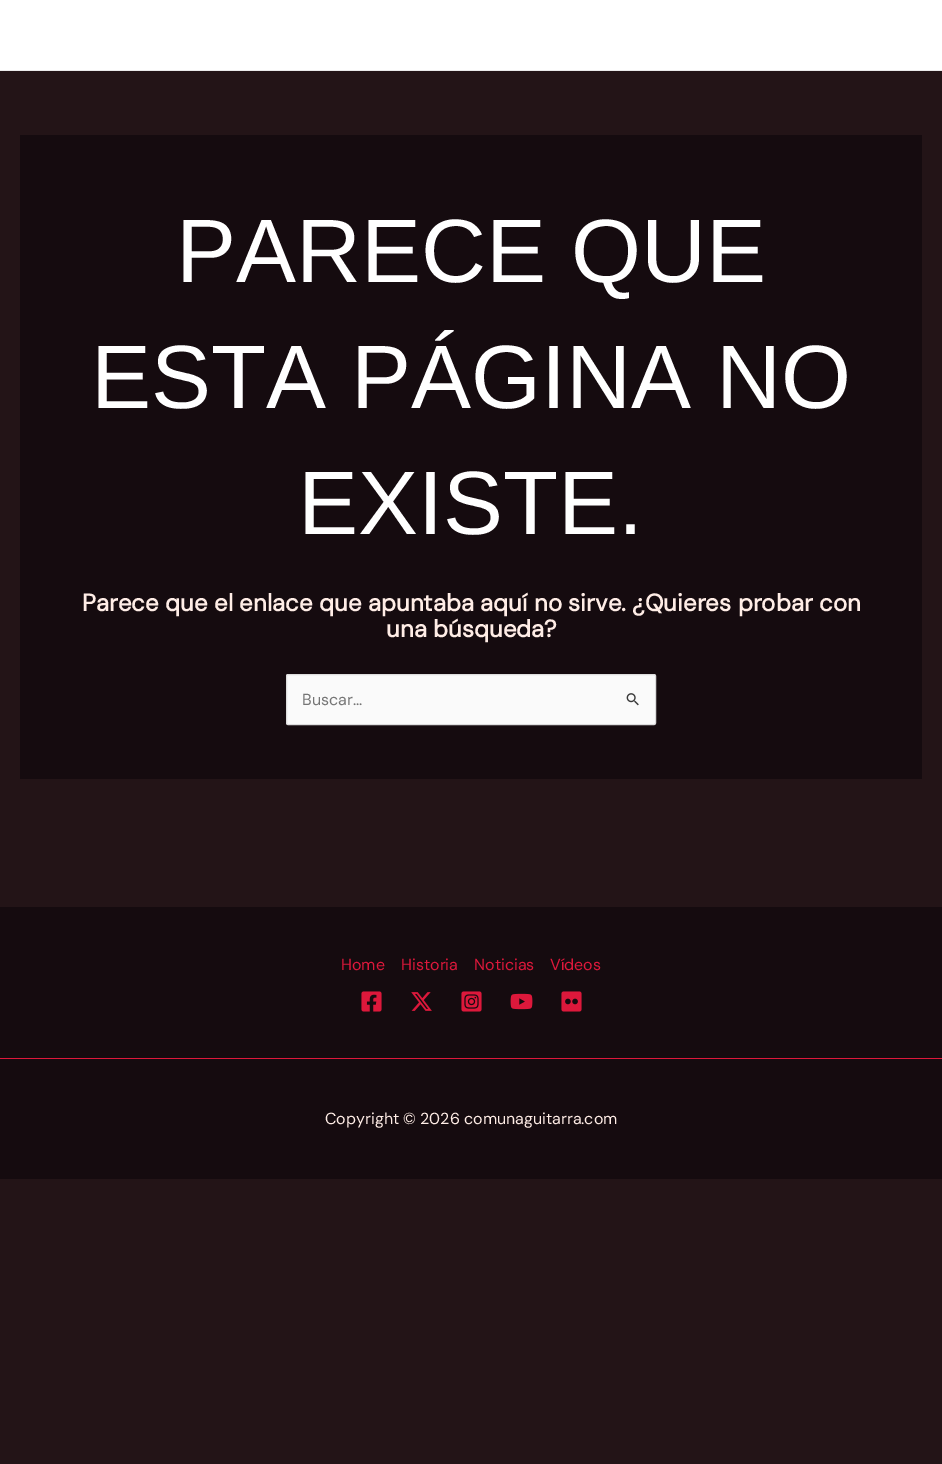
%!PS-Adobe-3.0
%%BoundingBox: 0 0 942 1464
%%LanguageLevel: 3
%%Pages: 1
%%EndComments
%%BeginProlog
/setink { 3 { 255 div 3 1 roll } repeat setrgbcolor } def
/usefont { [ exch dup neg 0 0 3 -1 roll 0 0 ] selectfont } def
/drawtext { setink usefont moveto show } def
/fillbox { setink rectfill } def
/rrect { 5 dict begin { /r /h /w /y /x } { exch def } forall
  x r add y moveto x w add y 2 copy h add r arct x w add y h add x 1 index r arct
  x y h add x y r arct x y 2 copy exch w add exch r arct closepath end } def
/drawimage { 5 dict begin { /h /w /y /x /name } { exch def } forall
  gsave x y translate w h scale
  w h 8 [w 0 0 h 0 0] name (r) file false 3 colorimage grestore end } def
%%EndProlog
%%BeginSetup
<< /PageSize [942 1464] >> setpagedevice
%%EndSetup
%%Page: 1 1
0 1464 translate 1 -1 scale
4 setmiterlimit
0 0 942 1464 35 20 23 fillbox
0 0 942 70 255 255 255 fillbox
0 70 942 1 234 234 234 fillbox
20 135 902 644 21 11 15 fillbox
(PARECE QUE) 176 282 /LiberationSans-Regular 90 255 255 255 drawtext
(ESTA PÁGINA NO) 91 408 /LiberationSans-Regular 90 255 255 255 drawtext
(EXISTE.) 298 534 /LiberationSans-Regular 90 255 255 255 drawtext
(Parece que el enlace que apuntaba aquí no sirve. ¿Quieres probar con) 82 611 /DMSans-Bold 24 255 237 230 drawtext
(una búsqueda?) 386 637 /DMSans-Bold 24 255 237 230 drawtext
250 250 250 setink
286.5 674.5 369 50 1.5 rrect gsave fill grestore
221 221 221 setink
stroke
(Buscar...) 302 705 /DMSans-Regular 16 117 117 117 drawtext
(assets/img1.rgb) 626 693 13 13 drawimage
0 907 942 151 21 11 15 fillbox
(Home) 341 970 /DMSans-Regular 16 221 24 59 drawtext
(Historia) 401 970 /DMSans-Regular 16 221 24 59 drawtext
(Noticias) 474 970 /DMSans-Regular 16 221 24 59 drawtext
(Vídeos) 550 970 /DMSans-Regular 16 221 24 59 drawtext
(assets/img2.rgb) 361 991 21 21 drawimage
(assets/img3.rgb) 411 992 21 19 drawimage
(assets/img4.rgb) 461 991 21 21 drawimage
(assets/img5.rgb) 510 993 23 17 drawimage
(assets/img6.rgb) 561 991 21 21 drawimage
0 1059 942 120 21 11 15 fillbox
0 1058 942 1 221 24 59 fillbox
(Copyright © 2026 comunaguitarra.com) 325 1124 /DMSans-Regular 16 255 237 230 drawtext
showpage
%%EOF
